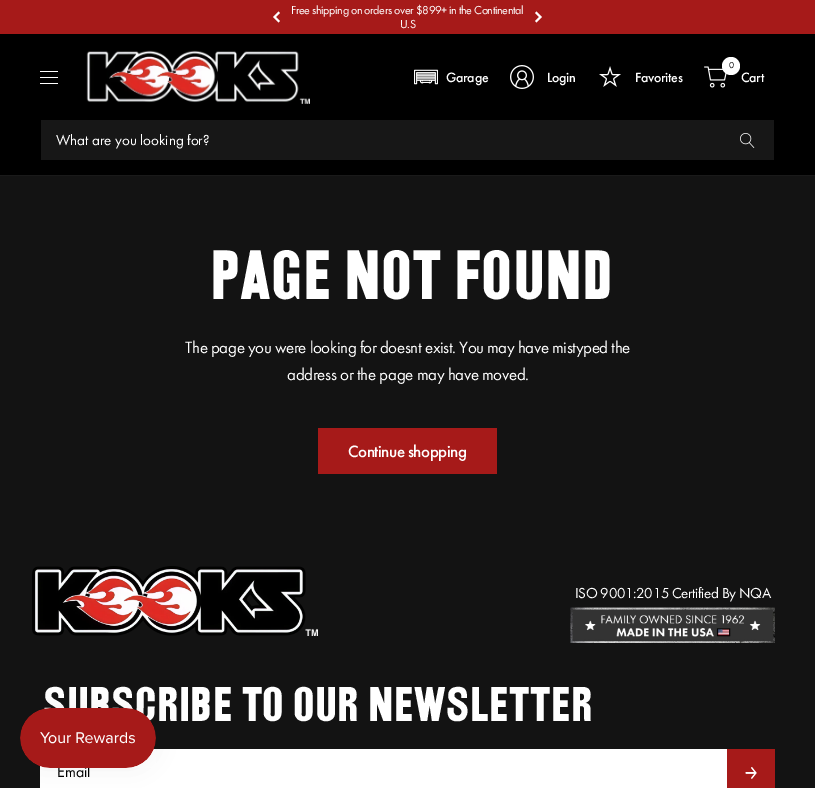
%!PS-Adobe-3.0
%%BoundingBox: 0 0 815 788
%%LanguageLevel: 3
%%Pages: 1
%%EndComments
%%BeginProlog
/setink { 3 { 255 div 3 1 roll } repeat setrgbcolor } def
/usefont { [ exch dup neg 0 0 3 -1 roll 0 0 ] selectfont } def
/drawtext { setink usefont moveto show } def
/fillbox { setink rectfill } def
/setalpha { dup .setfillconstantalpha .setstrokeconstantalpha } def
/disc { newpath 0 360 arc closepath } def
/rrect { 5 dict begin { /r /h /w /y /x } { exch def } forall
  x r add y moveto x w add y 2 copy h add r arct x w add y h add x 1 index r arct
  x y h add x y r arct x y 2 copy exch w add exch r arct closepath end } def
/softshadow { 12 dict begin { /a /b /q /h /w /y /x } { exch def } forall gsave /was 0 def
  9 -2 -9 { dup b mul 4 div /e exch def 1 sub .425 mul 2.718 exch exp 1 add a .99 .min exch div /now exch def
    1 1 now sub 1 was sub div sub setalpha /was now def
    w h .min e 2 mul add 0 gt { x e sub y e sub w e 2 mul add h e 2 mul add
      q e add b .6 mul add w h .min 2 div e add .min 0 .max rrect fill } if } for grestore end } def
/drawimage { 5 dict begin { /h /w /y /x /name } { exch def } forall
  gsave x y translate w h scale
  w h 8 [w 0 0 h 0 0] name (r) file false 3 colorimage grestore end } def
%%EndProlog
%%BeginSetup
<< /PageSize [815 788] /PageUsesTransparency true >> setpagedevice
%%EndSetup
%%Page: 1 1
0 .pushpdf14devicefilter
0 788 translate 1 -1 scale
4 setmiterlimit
0 0 815 788 19 19 19 fillbox
0 0 815 34 166 26 25 fillbox
/FuturaPT-Regular 12 usefont
255 255 255 setink
291 14 moveto -0.25 0 32 -0.35 0 (Free shipping on orders over $899+ in the Continental) awidthshow
400 28 moveto -0.35 0 (U.S) ashow
1.9 setlinewidth
2 setlinecap
278.5 21 moveto 274.5 17 lineto 278.5 13 lineto stroke
536.5 21 moveto 540.5 17 lineto 536.5 13 lineto stroke
0 34 815 141 0 0 0 fillbox
255 255 255 setink
40 71 18 1 0.5 rrect fill
40 77 18 1 0.5 rrect fill
40 83 18 1 0.5 rrect fill
(assets/img1.rgb) 86 50 224 54 drawimage
(assets/img2.rgb) 414 69 24 16 drawimage
/FuturaPT-Medium 14 usefont
446 82 moveto -0.35 0 (Garage) ashow
(assets/img3.rgb) 510 65 24 24 drawimage
547 82 moveto -0.35 0 (Login) ashow
(assets/img4.rgb) 599 66 22 21 drawimage
635 82 moveto -0.35 0 (Favorites) ashow
(assets/img5.rgb) 704 66 23 22 drawimage
731 66 9 disc fill
/FuturaPT-Regular 9 usefont
0 0 0 setink
729 68 moveto -0.35 0 (0) ashow
/FuturaPT-Medium 14 usefont
255 255 255 setink
741 82 moveto -0.35 0 (Cart) ashow
41 120 733 40 23 23 23 fillbox
(What are you looking for?) 56 145 /FuturaPT-Regular 15 255 255 255 drawtext
(assets/img6.rgb) 740 133 15 15 drawimage
0 175 815 1 26 26 26 fillbox
/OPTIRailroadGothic-Medium 60 usefont
255 255 255 setink
206 299 moveto -0.6 0 (Page not found) ashow
/FuturaPT-Regular 17 usefont
185 353 moveto -0.25 0 32 -0.35 0 (The page you were looking for doesnt exist. You may have mistyped the) awidthshow
287 380 moveto -0.35 0 (address or the page may have moved.) ashow
318 428 179 46 166 26 25 fillbox
/FuturaPT-Medium 17 usefont
255 255 255 setink
348 457 moveto -0.5 0 (Continue shopping) ashow
(assets/img7.rgb) 32 566 286 70 drawimage
/FuturaPT-Regular 15 usefont
575 598 moveto -0.35 0 (ISO 9001:2015 Certified By NQA) ashow
(assets/img8.rgb) 570 607 205 36 drawimage
/OPTIRailroadGothic-Medium 42 usefont
40 721 moveto -0.4 0 (Subscribe to our newsletter) ashow
40 749 687 39 255 255 255 fillbox
(Email) 57 777 /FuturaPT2-Regular 16 0 0 0 drawtext
727 749 48 39 166 26 25 fillbox
(assets/img9.rgb) 745 767 12 12 drawimage
0 0 0 setink
20 708 136 60 30 12.5 0.05 softshadow
(assets/img10.rgb) 20 708 136 60 drawimage
.poppdf14devicefilter showpage
%%EOF
